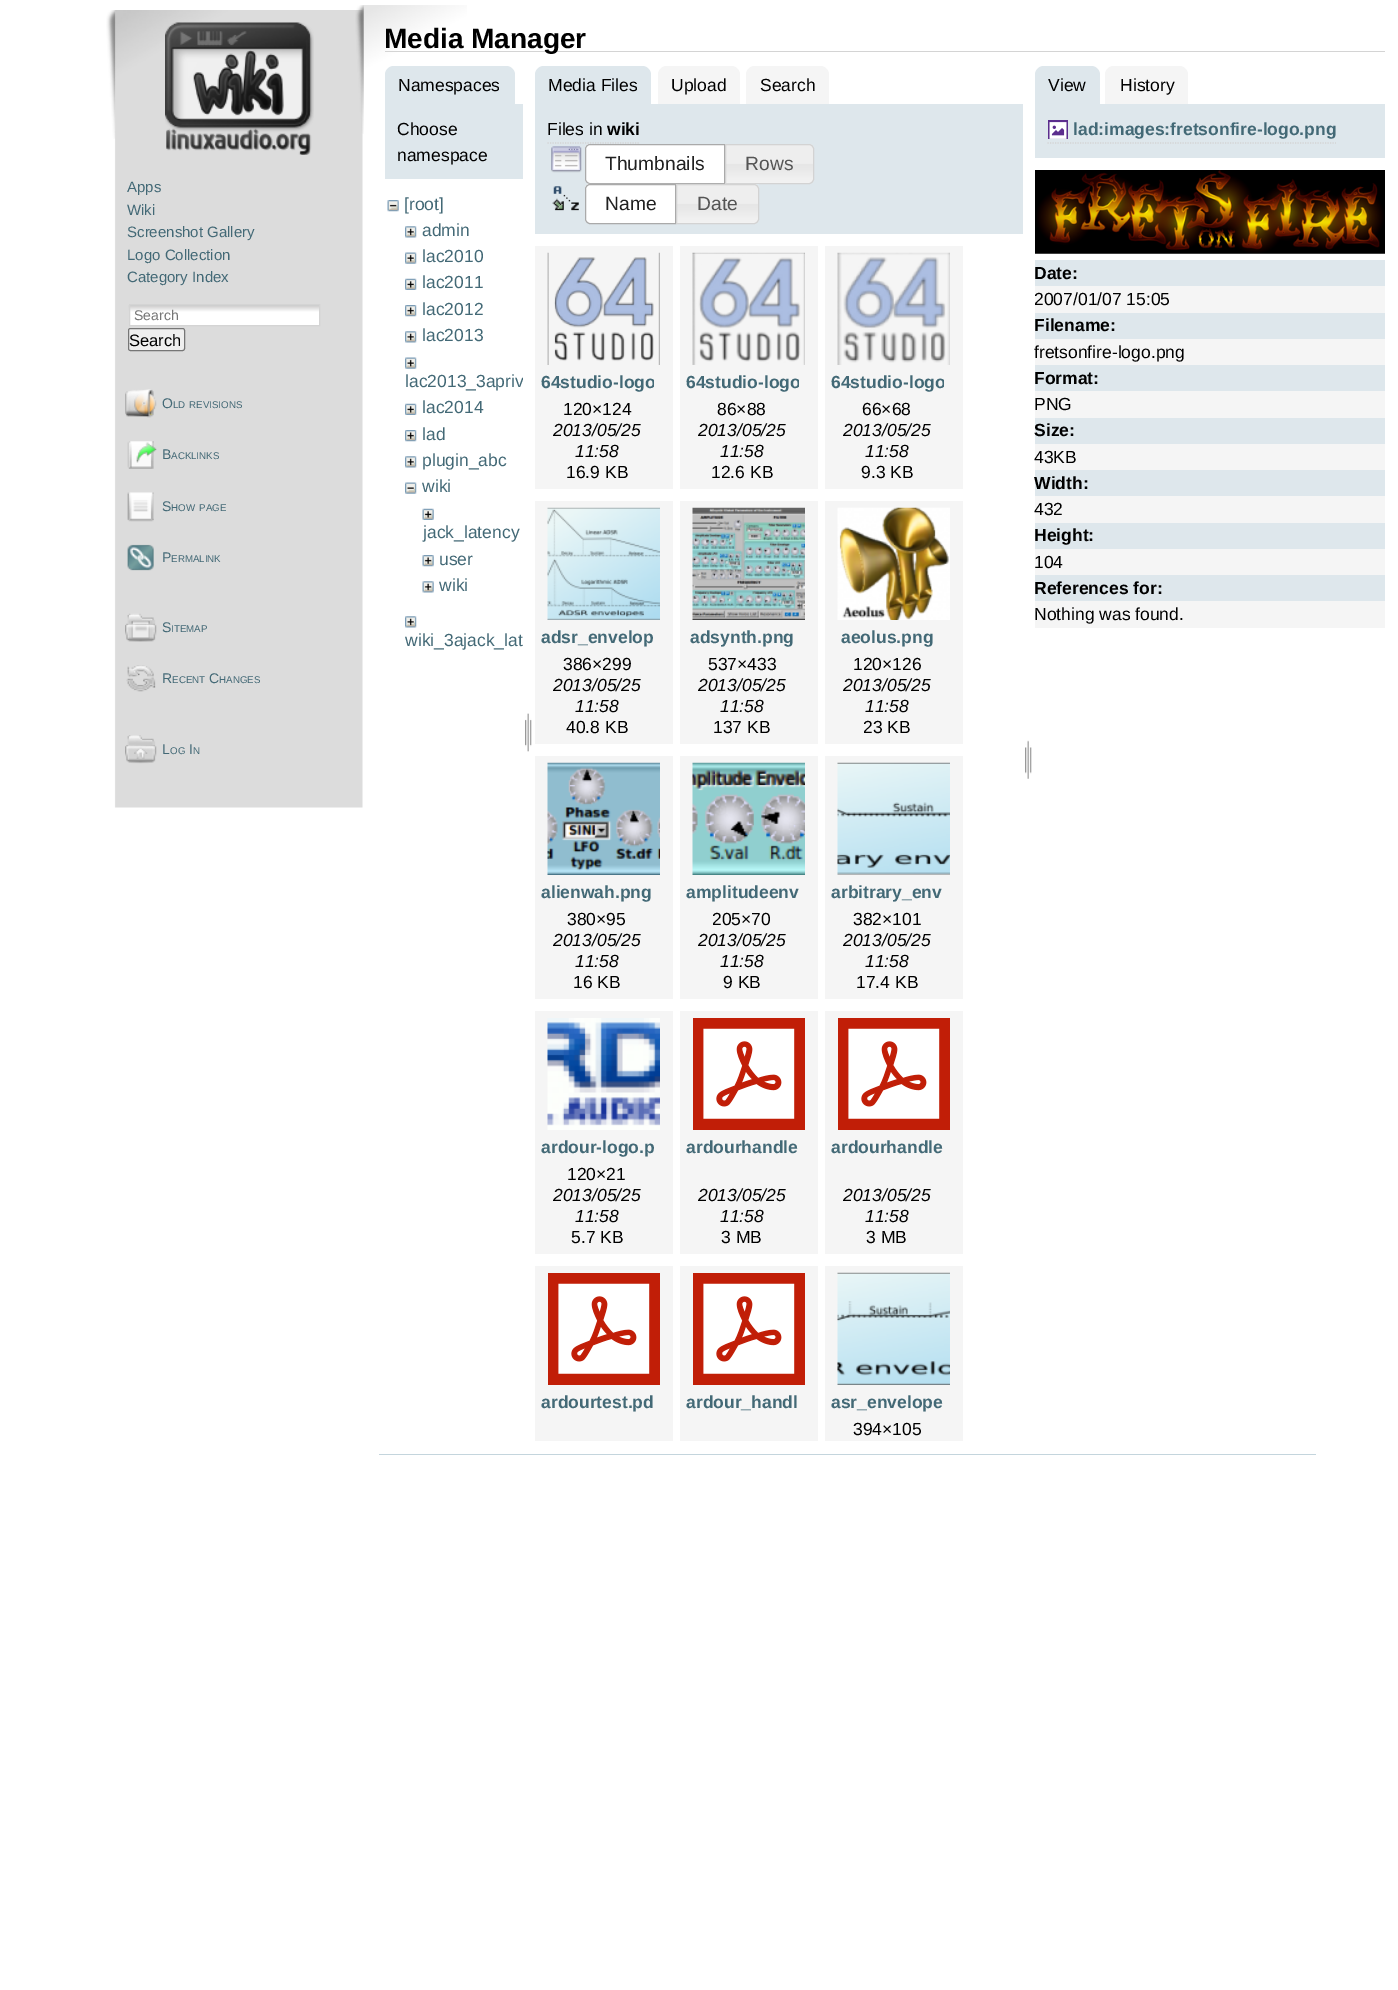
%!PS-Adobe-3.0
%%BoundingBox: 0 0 1398 1990
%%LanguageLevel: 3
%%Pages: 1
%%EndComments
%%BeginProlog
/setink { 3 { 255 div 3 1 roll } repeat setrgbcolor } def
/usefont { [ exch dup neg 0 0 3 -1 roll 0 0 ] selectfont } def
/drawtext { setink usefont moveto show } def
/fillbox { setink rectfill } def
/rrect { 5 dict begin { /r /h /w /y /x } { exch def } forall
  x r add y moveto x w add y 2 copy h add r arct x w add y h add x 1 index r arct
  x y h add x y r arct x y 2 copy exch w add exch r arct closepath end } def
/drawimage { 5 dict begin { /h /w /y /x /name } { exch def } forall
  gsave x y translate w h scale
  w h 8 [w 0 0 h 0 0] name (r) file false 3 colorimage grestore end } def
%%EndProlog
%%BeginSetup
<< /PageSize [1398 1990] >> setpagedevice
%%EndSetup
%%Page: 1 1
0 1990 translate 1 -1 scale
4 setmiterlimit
0 0 1398 1990 255 255 255 fillbox
(assets/img1.rgb) 106 10 257 798 drawimage
(assets/img2.rgb) 165 22 149 133 drawimage
(Apps) 127 192 /LiberationSans-Regular 15 67 105 118 drawtext
(Wiki) 127 215 /LiberationSans-Regular 15 67 105 118 drawtext
(Screenshot Gallery) 127 237 /LiberationSans-Regular 15 67 105 118 drawtext
(Logo Collection) 127 260 /LiberationSans-Regular 15 67 105 118 drawtext
(Category Index) 127 282 /LiberationSans-Regular 15 67 105 118 drawtext
130 305 189 20 255 255 255 fillbox
(assets/img3.rgb) 128 305 191 7 drawimage
212 212 212 setink
129.5 304.5 190 21 rectstroke
(Search) 134 320 /LiberationSans-Regular 14 117 117 117 drawtext
239 239 239 setink
128.5 328.5 56 22 2 rrect gsave fill grestore
118 118 118 setink
stroke
(Search) 129 346 /LiberationSans-Regular 16.5 0 0 0 drawtext
(assets/img4.rgb) 125 389 32 29 drawimage
(O) 162 408 /LiberationSans-Regular 14 67 105 118 drawtext
(LD) 173 408 /LiberationSans-Regular 9.75 67 105 118 drawtext
(REVISIONS) 189 408 /LiberationSans-Regular 9.75 67 105 118 drawtext
(assets/img5.rgb) 127 441 30 28 drawimage
(B) 162 459 /LiberationSans-Regular 14 67 105 118 drawtext
(ACKLINKS) 171 459 /LiberationSans-Regular 9.75 67 105 118 drawtext
(assets/img6.rgb) 127 492 27 30 drawimage
(S) 162 511 /LiberationSans-Regular 14 67 105 118 drawtext
(HOW) 171 511 /LiberationSans-Regular 9.75 67 105 118 drawtext
(PAGE) 199 511 /LiberationSans-Regular 9.75 67 105 118 drawtext
(assets/img7.rgb) 127 544 27 27 drawimage
(P) 162 562 /LiberationSans-Regular 14 67 105 118 drawtext
(ERMALINK) 171 562 /LiberationSans-Regular 9.75 67 105 118 drawtext
(assets/img8.rgb) 125 613 32 29 drawimage
(S) 162 632 /LiberationSans-Regular 14 67 105 118 drawtext
(ITEMAP) 171 632 /LiberationSans-Regular 9.75 67 105 118 drawtext
(assets/img9.rgb) 126 665 30 27 drawimage
(R) 162 683 /LiberationSans-Regular 14 67 105 118 drawtext
(ECENT) 172 683 /LiberationSans-Regular 9.75 67 105 118 drawtext
(C) 209 683 /LiberationSans-Regular 14 67 105 118 drawtext
(HANGES) 219 683 /LiberationSans-Regular 9.75 67 105 118 drawtext
(assets/img10.rgb) 125 735 32 29 drawimage
(L) 162 754 /LiberationSans-Regular 14 67 105 118 drawtext
(OG) 170 754 /LiberationSans-Regular 9.75 67 105 118 drawtext
(I) 189 754 /LiberationSans-Regular 14 67 105 118 drawtext
(N) 193 754 /LiberationSans-Regular 9.75 67 105 118 drawtext
(assets/img11.rgb) 355 5 112 129 drawimage
385 51 1000 1 212 212 212 fillbox
(Media Manager) 384 48 /LiberationSans-Bold 28 0 0 0 drawtext
222 231 236 setink
394 66 moveto 506 66 lineto 511 66 515 70 515 75 curveto 515 104 lineto 385 104 lineto 385 75 lineto 385 70 389 66 394 66 curveto closepath fill
(Namespaces) 398 91 /LiberationSans-Regular 17.5 0 0 0 drawtext
385 104 138 75 222 231 236 fillbox
(Choose) 397 135 /LiberationSans-Regular 17.5 0 0 0 drawtext
(namespace) 397 161 /LiberationSans-Regular 17.5 0 0 0 drawtext
(assets/img12.rgb) 387 200 12 12 drawimage
([root]) 404 210 /LiberationSans-Regular 17.5 67 105 118 drawtext
(assets/img13.rgb) 405 226 12 12 drawimage
(admin) 422 236 /LiberationSans-Regular 17.5 67 105 118 drawtext
(assets/img14.rgb) 405 252 12 12 drawimage
(lac2010) 422 262 /LiberationSans-Regular 17.5 67 105 118 drawtext
(assets/img15.rgb) 405 278 12 12 drawimage
(lac2011) 422 288 /LiberationSans-Regular 17.5 67 105 118 drawtext
(assets/img16.rgb) 405 305 12 12 drawimage
(lac2012) 422 315 /LiberationSans-Regular 17.5 67 105 118 drawtext
(assets/img13.rgb) 405 331 12 12 drawimage
(lac2013) 422 341 /LiberationSans-Regular 17.5 67 105 118 drawtext
(assets/img14.rgb) 405 357 12 12 drawimage
gsave
385 191 138 1194 rectclip
(lac2013_3apriv) 405 387 /LiberationSans-Regular 17.5 67 105 118 drawtext
grestore
(assets/img15.rgb) 405 403 12 12 drawimage
(lac2014) 422 413 /LiberationSans-Regular 17.5 67 105 118 drawtext
(assets/img16.rgb) 405 430 12 12 drawimage
(lad) 422 440 /LiberationSans-Regular 17.5 67 105 118 drawtext
(assets/img13.rgb) 405 456 12 12 drawimage
(plugin_abc) 422 466 /LiberationSans-Regular 17.5 67 105 118 drawtext
(assets/img17.rgb) 405 482 12 12 drawimage
(wiki) 422 492 /LiberationSans-Regular 17.5 67 105 118 drawtext
(assets/img18.rgb) 422 508 12 12 drawimage
(jack_latency) 423 538 /LiberationSans-Regular 17.5 67 105 118 drawtext
(assets/img19.rgb) 422 555 12 12 drawimage
(user) 439 565 /LiberationSans-Regular 17.5 67 105 118 drawtext
(assets/img20.rgb) 422 581 12 12 drawimage
(wiki) 439 591 /LiberationSans-Regular 17.5 67 105 118 drawtext
(assets/img13.rgb) 405 616 12 12 drawimage
(wiki_3ajack_lat) 405 646 /LiberationSans-Regular 17.5 67 105 118 drawtext
(assets/img21.rgb) 525 713 7 39 drawimage
222 231 236 setink
544 66 moveto 642 66 lineto 647 66 651 70 651 75 curveto 651 104 lineto 535 104 lineto 535 75 lineto 535 70 539 66 544 66 curveto closepath fill
(Media Files) 548 91 /LiberationSans-Regular 17.5 0 0 0 drawtext
245 245 245 setink
667 66 moveto 731 66 lineto 736 66 740 70 740 75 curveto 740 104 lineto 658 104 lineto 658 75 lineto 658 70 662 66 667 66 curveto closepath fill
(Upload) 671 91 /LiberationSans-Regular 17.5 0 0 0 drawtext
245 245 245 setink
755 66 moveto 820 66 lineto 825 66 829 70 829 75 curveto 829 104 lineto 746 104 lineto 746 75 lineto 746 70 750 66 755 66 curveto closepath fill
(Search) 760 91 /LiberationSans-Regular 17.5 0 0 0 drawtext
535 104 488 130 222 231 236 fillbox
212 212 212 setink
1.2 setlinewidth
[1.25 1.25] 0 setdash
547.5 143 moveto 640 143 lineto stroke
(Files in) 547 135 /LiberationSans-Regular 17.5 0 0 0 drawtext
(wiki) 607 135 /LiberationSans-Bold 17.5 0 0 0 drawtext
(assets/img22.rgb) 551 146 31 27 drawimage
255 255 255 setink
590 144 moveto 725 144 lineto 725 184 lineto 590 184 lineto 587 184 585 182 585 179 curveto 585 149 lineto 585 146 587 144 590 144 curveto closepath fill
(assets/img23.rgb) 585 144 4 39 drawimage
170 170 170 setink
1 setlinewidth
[] 0 setdash
590 144.5 moveto 724.5 144.5 lineto 724.5 183.5 lineto 590 183.5 lineto 587.5 183.5 585.5 181.5 585.5 179 curveto 585.5 149 lineto 585.5 146.5 587.5 144.5 590 144.5 curveto closepath stroke
(Thumbnails) 605 170 /LiberationSans-Regular 19.25 33 33 33 drawtext
(assets/img24.rgb) 726 144 88 40 drawimage
211 211 211 setink
725.5 144.5 moveto 809 144.5 lineto 811.5 144.5 813.5 146.5 813.5 149 curveto 813.5 179 lineto 813.5 181.5 811.5 183.5 809 183.5 curveto 725.5 183.5 lineto closepath stroke
(Rows) 745 170 /LiberationSans-Regular 19.25 85 85 85 drawtext
(assets/img25.rgb) 552 186 27 25 drawimage
(assets/img26.rgb) 585 183 91 40 drawimage
170 170 170 setink
590 184.5 moveto 675.5 184.5 lineto 675.5 223.5 lineto 590 223.5 lineto 587.5 223.5 585.5 221.5 585.5 219 curveto 585.5 189 lineto 585.5 186.5 587.5 184.5 590 184.5 curveto closepath stroke
(Name) 605 210 /LiberationSans-Regular 19.25 33 33 33 drawtext
(assets/img27.rgb) 676 183 83 41 drawimage
211 211 211 setink
676.5 184.5 moveto 754 184.5 lineto 756.5 184.5 758.5 186.5 758.5 189 curveto 758.5 219 lineto 758.5 221.5 756.5 223.5 754 223.5 curveto 676.5 223.5 lineto closepath stroke
(Date) 697 210 /LiberationSans-Regular 19.25 85 85 85 drawtext
535 246 138 243 245 245 245 fillbox
(assets/img28.rgb) 547 252 113 113 drawimage
gsave
541 365 113 34 rectclip
(64studio-logo) 541 388 /LiberationSans-Bold 17.5 67 105 118 drawtext
grestore
(120×124) 563 415 /LiberationSans-Regular 17.5 0 0 0 drawtext
(2013/05/25) 553 436 /LiberationSans-Italic 17.5 0 0 0 drawtext
(11:58) 575 457 /LiberationSans-Italic 17.5 0 0 0 drawtext
(16.9 KB) 566 478 /LiberationSans-Regular 17.5 0 0 0 drawtext
680 246 138 243 245 245 245 fillbox
(assets/img29.rgb) 692 252 113 113 drawimage
gsave
686 365 113 34 rectclip
(64studio-logo) 686 388 /LiberationSans-Bold 17.5 67 105 118 drawtext
grestore
(86×88) 717 415 /LiberationSans-Regular 17.5 0 0 0 drawtext
(2013/05/25) 698 436 /LiberationSans-Italic 17.5 0 0 0 drawtext
(11:58) 720 457 /LiberationSans-Italic 17.5 0 0 0 drawtext
(12.6 KB) 711 478 /LiberationSans-Regular 17.5 0 0 0 drawtext
825 246 138 243 245 245 245 fillbox
(assets/img30.rgb) 837 252 113 113 drawimage
gsave
831 365 113 34 rectclip
(64studio-logo) 831 388 /LiberationSans-Bold 17.5 67 105 118 drawtext
grestore
(66×68) 862 415 /LiberationSans-Regular 17.5 0 0 0 drawtext
(2013/05/25) 843 436 /LiberationSans-Italic 17.5 0 0 0 drawtext
(11:58) 865 457 /LiberationSans-Italic 17.5 0 0 0 drawtext
(9.3 KB) 861 478 /LiberationSans-Regular 17.5 0 0 0 drawtext
535 501 138 243 245 245 245 fillbox
(assets/img31.rgb) 547 507 113 113 drawimage
(adsr_envelop) 541 643 /LiberationSans-Bold 17.5 67 105 118 drawtext
(386×299) 563 670 /LiberationSans-Regular 17.5 0 0 0 drawtext
(2013/05/25) 553 691 /LiberationSans-Italic 17.5 0 0 0 drawtext
(11:58) 575 712 /LiberationSans-Italic 17.5 0 0 0 drawtext
(40.8 KB) 566 733 /LiberationSans-Regular 17.5 0 0 0 drawtext
680 501 138 243 245 245 245 fillbox
(assets/img32.rgb) 692 507 113 113 drawimage
(adsynth.png) 690 643 /LiberationSans-Bold 17.5 67 105 118 drawtext
(537×433) 708 670 /LiberationSans-Regular 17.5 0 0 0 drawtext
(2013/05/25) 698 691 /LiberationSans-Italic 17.5 0 0 0 drawtext
(11:58) 720 712 /LiberationSans-Italic 17.5 0 0 0 drawtext
(137 KB) 713 733 /LiberationSans-Regular 17.5 0 0 0 drawtext
825 501 138 243 245 245 245 fillbox
(assets/img33.rgb) 837 507 113 113 drawimage
(aeolus.png) 841 643 /LiberationSans-Bold 17.5 67 105 118 drawtext
(120×126) 853 670 /LiberationSans-Regular 17.5 0 0 0 drawtext
(2013/05/25) 843 691 /LiberationSans-Italic 17.5 0 0 0 drawtext
(11:58) 865 712 /LiberationSans-Italic 17.5 0 0 0 drawtext
(23 KB) 863 733 /LiberationSans-Regular 17.5 0 0 0 drawtext
535 756 138 243 245 245 245 fillbox
(assets/img34.rgb) 547 762 113 113 drawimage
(alienwah.png) 541 898 /LiberationSans-Bold 17.5 67 105 118 drawtext
(380×95) 567 925 /LiberationSans-Regular 17.5 0 0 0 drawtext
(2013/05/25) 553 946 /LiberationSans-Italic 17.5 0 0 0 drawtext
(11:58) 575 967 /LiberationSans-Italic 17.5 0 0 0 drawtext
(16 KB) 573 988 /LiberationSans-Regular 17.5 0 0 0 drawtext
680 756 138 243 245 245 245 fillbox
(assets/img35.rgb) 692 762 113 113 drawimage
(amplitudeenv) 686 898 /LiberationSans-Bold 17.5 67 105 118 drawtext
(205×70) 712 925 /LiberationSans-Regular 17.5 0 0 0 drawtext
(2013/05/25) 698 946 /LiberationSans-Italic 17.5 0 0 0 drawtext
(11:58) 720 967 /LiberationSans-Italic 17.5 0 0 0 drawtext
(9 KB) 723 988 /LiberationSans-Regular 17.5 0 0 0 drawtext
825 756 138 243 245 245 245 fillbox
(assets/img36.rgb) 837 762 113 113 drawimage
(arbitrary_env) 831 898 /LiberationSans-Bold 17.5 67 105 118 drawtext
(382×101) 853 925 /LiberationSans-Regular 17.5 0 0 0 drawtext
(2013/05/25) 843 946 /LiberationSans-Italic 17.5 0 0 0 drawtext
(11:58) 865 967 /LiberationSans-Italic 17.5 0 0 0 drawtext
(17.4 KB) 856 988 /LiberationSans-Regular 17.5 0 0 0 drawtext
535 1011 138 243 245 245 245 fillbox
(assets/img37.rgb) 547 1018 113 112 drawimage
(ardour-logo.p) 541 1153 /LiberationSans-Bold 17.5 67 105 118 drawtext
(120×21) 567 1180 /LiberationSans-Regular 17.5 0 0 0 drawtext
(2013/05/25) 553 1201 /LiberationSans-Italic 17.5 0 0 0 drawtext
(11:58) 575 1222 /LiberationSans-Italic 17.5 0 0 0 drawtext
(5.7 KB) 571 1243 /LiberationSans-Regular 17.5 0 0 0 drawtext
680 1011 138 243 245 245 245 fillbox
(assets/img38.rgb) 693 1018 112 112 drawimage
(ardourhandle) 686 1153 /LiberationSans-Bold 17.5 67 105 118 drawtext
(2013/05/25) 698 1201 /LiberationSans-Italic 17.5 0 0 0 drawtext
(11:58) 720 1222 /LiberationSans-Italic 17.5 0 0 0 drawtext
(3 MB) 721 1243 /LiberationSans-Regular 17.5 0 0 0 drawtext
825 1011 138 243 245 245 245 fillbox
(assets/img38.rgb) 838 1018 112 112 drawimage
(ardourhandle) 831 1153 /LiberationSans-Bold 17.5 67 105 118 drawtext
(2013/05/25) 843 1201 /LiberationSans-Italic 17.5 0 0 0 drawtext
(11:58) 865 1222 /LiberationSans-Italic 17.5 0 0 0 drawtext
(3 MB) 866 1243 /LiberationSans-Regular 17.5 0 0 0 drawtext
535 1266 138 175 245 245 245 fillbox
(assets/img38.rgb) 548 1273 112 112 drawimage
(ardourtest.pd) 541 1408 /LiberationSans-Bold 17.5 67 105 118 drawtext
680 1266 138 175 245 245 245 fillbox
(assets/img38.rgb) 693 1273 112 112 drawimage
(ardour_handl) 686 1408 /LiberationSans-Bold 17.5 67 105 118 drawtext
825 1266 138 175 245 245 245 fillbox
(assets/img39.rgb) 837 1272 113 113 drawimage
(asr_envelope) 831 1408 /LiberationSans-Bold 17.5 67 105 118 drawtext
(394×105) 853 1435 /LiberationSans-Regular 17.5 0 0 0 drawtext
(assets/img40.rgb) 1025 740 7 39 drawimage
222 231 236 setink
1044 66 moveto 1091 66 lineto 1096 66 1100 70 1100 75 curveto 1100 104 lineto 1035 104 lineto 1035 75 lineto 1035 70 1039 66 1044 66 curveto closepath fill
(View) 1048 91 /LiberationSans-Regular 17.5 0 0 0 drawtext
245 245 245 setink
1114 66 moveto 1179 66 lineto 1184 66 1188 70 1188 75 curveto 1188 104 lineto 1105 104 lineto 1105 75 lineto 1105 70 1109 66 1114 66 curveto closepath fill
(History) 1120 91 /LiberationSans-Regular 17.5 0 0 0 drawtext
1035 104 350 54 222 231 236 fillbox
212 212 212 setink
1.2 setlinewidth
[1.25 1.25] 0 setdash
1047.5 143 moveto 1336 143 lineto stroke
(assets/img41.rgb) 1048 120 20 19 drawimage
(lad:images:fretsonfire-logo.png) 1073 135 /LiberationSans-Bold 17.5 67 105 118 drawtext
(assets/img42.rgb) 1035 170 350 84 drawimage
1035 260 350 26 222 231 236 fillbox
(Date:) 1034 279 /LiberationSans-Bold 17.5 0 0 0 drawtext
1035 286 350 27 245 245 245 fillbox
(2007/01/07 15:05) 1034 305 /LiberationSans-Regular 17.5 0 0 0 drawtext
1035 313 350 26 222 231 236 fillbox
(Filename:) 1034 331 /LiberationSans-Bold 17.5 0 0 0 drawtext
1035 339 350 26 245 245 245 fillbox
(fretsonfire-logo.png) 1034 358 /LiberationSans-Regular 17.5 0 0 0 drawtext
1035 365 350 26 222 231 236 fillbox
(Format:) 1034 384 /LiberationSans-Bold 17.5 0 0 0 drawtext
1035 391 350 27 245 245 245 fillbox
(PNG) 1034 410 /LiberationSans-Regular 17.5 0 0 0 drawtext
1035 418 350 26 222 231 236 fillbox
(Size:) 1034 436 /LiberationSans-Bold 17.5 0 0 0 drawtext
1035 444 350 26 245 245 245 fillbox
(43KB) 1034 463 /LiberationSans-Regular 17.5 0 0 0 drawtext
1035 470 350 26 222 231 236 fillbox
(Width:) 1034 489 /LiberationSans-Bold 17.5 0 0 0 drawtext
1035 496 350 27 245 245 245 fillbox
(432) 1034 515 /LiberationSans-Regular 17.5 0 0 0 drawtext
1035 523 350 26 222 231 236 fillbox
(Height:) 1034 541 /LiberationSans-Bold 17.5 0 0 0 drawtext
1035 549 350 26 245 245 245 fillbox
(104) 1034 568 /LiberationSans-Regular 17.5 0 0 0 drawtext
1035 575 350 26 222 231 236 fillbox
(References for:) 1034 594 /LiberationSans-Bold 17.5 0 0 0 drawtext
1035 601 350 27 245 245 245 fillbox
(Nothing was found.) 1034 620 /LiberationSans-Regular 17.5 0 0 0 drawtext
379 1454 937 1 196 213 221 fillbox
showpage
%%EOF
